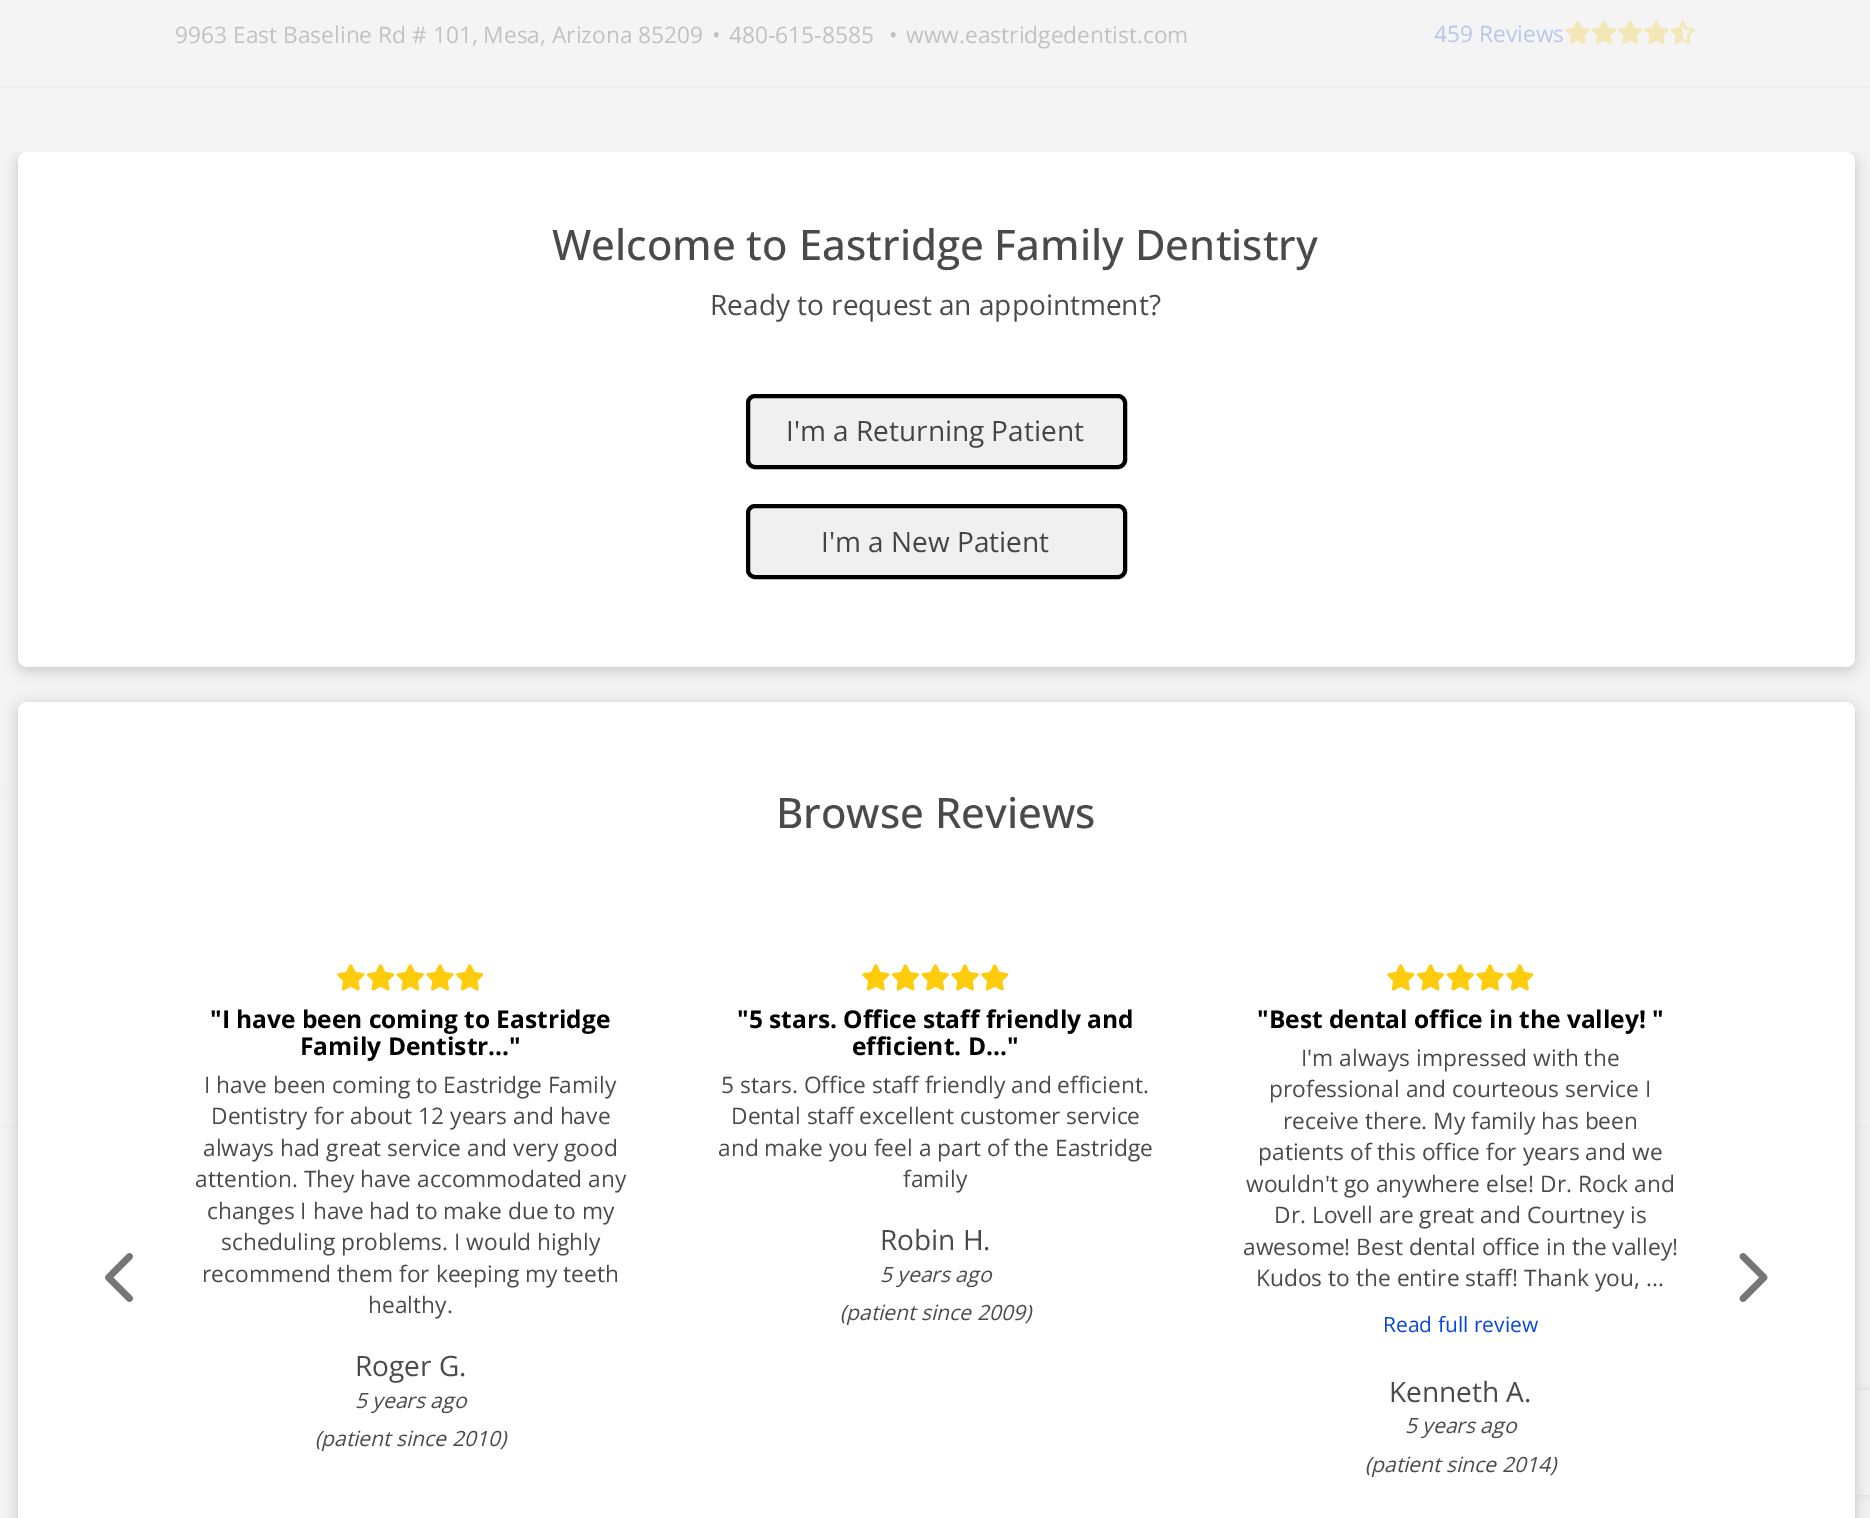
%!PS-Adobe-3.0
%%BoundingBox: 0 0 1870 1518
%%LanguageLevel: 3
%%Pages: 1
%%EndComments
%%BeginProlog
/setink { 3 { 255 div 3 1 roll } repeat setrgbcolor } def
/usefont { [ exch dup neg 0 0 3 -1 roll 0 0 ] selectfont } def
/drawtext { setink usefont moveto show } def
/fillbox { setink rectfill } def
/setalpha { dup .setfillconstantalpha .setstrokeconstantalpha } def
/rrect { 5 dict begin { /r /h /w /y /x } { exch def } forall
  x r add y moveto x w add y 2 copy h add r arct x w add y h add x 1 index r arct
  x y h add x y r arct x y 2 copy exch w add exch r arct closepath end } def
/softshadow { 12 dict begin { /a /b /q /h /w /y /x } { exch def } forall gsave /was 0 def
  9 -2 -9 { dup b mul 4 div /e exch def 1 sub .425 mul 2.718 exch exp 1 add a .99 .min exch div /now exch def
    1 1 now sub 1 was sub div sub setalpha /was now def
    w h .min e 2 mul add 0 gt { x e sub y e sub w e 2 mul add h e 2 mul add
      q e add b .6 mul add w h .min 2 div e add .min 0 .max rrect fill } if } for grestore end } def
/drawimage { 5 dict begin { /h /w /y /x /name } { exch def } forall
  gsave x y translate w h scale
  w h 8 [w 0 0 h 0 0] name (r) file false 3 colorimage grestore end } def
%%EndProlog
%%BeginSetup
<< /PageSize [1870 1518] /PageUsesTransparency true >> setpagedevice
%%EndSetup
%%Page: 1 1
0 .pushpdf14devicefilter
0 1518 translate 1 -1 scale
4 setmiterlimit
0 0 1870 1518 244 244 244 fillbox
(9963 East Baseline Rd # 101, Mesa, Arizona 85209) 175 43 /OpenSans-Regular 22.75 193 193 193 drawtext
(•) 712 43 /OpenSans-Regular 22.75 193 193 193 drawtext
(480-615-8585) 729 43 /OpenSans-Regular 22.75 193 193 193 drawtext
(•) 889 43 /OpenSans-Regular 22.75 193 193 193 drawtext
(www.eastridgedentist.com) 906 43 /OpenSans-Regular 22.75 193 193 193 drawtext
(459 Reviews) 1434 42 /OpenSans-Regular 22.75 182 198 235 drawtext
(assets/img1.rgb) 1565 20 25 24 drawimage
(assets/img2.rgb) 1591 20 25 24 drawimage
(assets/img3.rgb) 1618 20 25 24 drawimage
(assets/img4.rgb) 1644 20 25 24 drawimage
(assets/img5.rgb) 1670 20 25 24 drawimage
0 86 1870 2 240 240 240 fillbox
gsave
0 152 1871 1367 rectclip
0 0 0 setink
18 156 1837 514 9 7 0.2 softshadow
grestore
255 255 255 setink
18 152 1837 515 9 rrect fill
(Welcome to Eastridge Family Dentistry) 552 260 /OpenSans-Medium 42 74 74 74 drawtext
(Ready to request an appointment?) 710 315 /OpenSans-Regular 28 74 74 74 drawtext
240 240 240 setink
748 396 377 71 7 rrect gsave fill grestore
0 0 0 setink
4 setlinewidth
stroke
(I'm a Returning Patient) 786 441 /OpenSans-Regular 28 68 68 68 drawtext
240 240 240 setink
748 506 377 71 7 rrect gsave fill grestore
0 0 0 setink
stroke
(I'm a New Patient) 821 552 /OpenSans-Regular 28 68 68 68 drawtext
0 791 1870 2 240 240 240 fillbox
0 1125 1870 2 240 240 240 fillbox
0 0 0 setink
18 705 1837 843 9 7 0.2 softshadow
gsave
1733 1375 moveto 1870 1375 lineto 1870 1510 lineto 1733 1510 lineto closepath 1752 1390 moveto 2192 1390 lineto 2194 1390 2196 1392 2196 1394 curveto 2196 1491 lineto 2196 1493 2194 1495 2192 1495 curveto 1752 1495 lineto 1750 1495 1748 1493 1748 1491 curveto 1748 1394 lineto 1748 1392 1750 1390 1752 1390 curveto closepath eoclip newpath
212 212 212 setink
1748 1390 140 105 4 4.5 1 softshadow
grestore
255 255 255 setink
27 702 moveto 1846 702 lineto 1851 702 1855 706 1855 711 curveto 1855 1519 lineto 18 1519 lineto 18 711 lineto 18 706 22 702 27 702 curveto closepath fill
(Browse Reviews) 776 828 /OpenSans-Medium 42 74 74 74 drawtext
(assets/img6.rgb) 105 1253 28 49 drawimage
(assets/img7.rgb) 337 964 28 27 drawimage
(assets/img8.rgb) 367 964 27 27 drawimage
(assets/img9.rgb) 396 964 28 27 drawimage
(assets/img10.rgb) 426 964 28 27 drawimage
(assets/img7.rgb) 456 964 28 27 drawimage
("I have been coming to Eastridge) 210 1028 /OpenSans-Bold 24.5 0 0 0 drawtext
(Family Dentistr...") 300 1055 /OpenSans-Bold 24.5 0 0 0 drawtext
(I have been coming to Eastridge Family) 204 1093 /OpenSans-Regular 22.75 74 74 74 drawtext
(Dentistry for about 12 years and have) 211 1124 /OpenSans-Regular 22.75 74 74 74 drawtext
(always had great service and very good) 203 1156 /OpenSans-Regular 22.75 74 74 74 drawtext
(attention. They have accommodated any) 195 1187 /OpenSans-Regular 22.75 74 74 74 drawtext
(changes I have had to make due to my) 207 1219 /OpenSans-Regular 22.75 74 74 74 drawtext
(scheduling problems. I would highly) 221 1250 /OpenSans-Regular 22.75 74 74 74 drawtext
(recommend them for keeping my teeth) 202 1282 /OpenSans-Regular 22.75 74 74 74 drawtext
(healthy.) 368 1313 /OpenSans-Regular 22.75 74 74 74 drawtext
(Roger G.) 355 1376 /OpenSans-Regular 28 74 74 74 drawtext
(5 years ago) 355 1408 /OpenSans-Italic 21 74 74 74 drawtext
(\(patient since 2010\)) 315 1446 /OpenSans-Italic 21 74 74 74 drawtext
(assets/img7.rgb) 862 964 28 27 drawimage
(assets/img8.rgb) 892 964 27 27 drawimage
(assets/img9.rgb) 921 964 28 27 drawimage
(assets/img10.rgb) 951 964 28 27 drawimage
(assets/img7.rgb) 981 964 28 27 drawimage
("5 stars. Office staff friendly and) 737 1028 /OpenSans-Bold 24.5 0 0 0 drawtext
(efficient. D...") 852 1055 /OpenSans-Bold 24.5 0 0 0 drawtext
(5 stars. Office staff friendly and efficient.) 721 1093 /OpenSans-Regular 22.75 74 74 74 drawtext
(Dental staff excellent customer service) 731 1124 /OpenSans-Regular 22.75 74 74 74 drawtext
(and make you feel a part of the Eastridge) 718 1156 /OpenSans-Regular 22.75 74 74 74 drawtext
(family) 903 1187 /OpenSans-Regular 22.75 74 74 74 drawtext
(Robin H.) 880 1250 /OpenSans-Regular 28 74 74 74 drawtext
(5 years ago) 880 1282 /OpenSans-Italic 21 74 74 74 drawtext
(\(patient since 2009\)) 840 1320 /OpenSans-Italic 21 74 74 74 drawtext
(assets/img7.rgb) 1387 964 28 27 drawimage
(assets/img8.rgb) 1417 964 27 27 drawimage
(assets/img9.rgb) 1446 964 28 27 drawimage
(assets/img10.rgb) 1476 964 28 27 drawimage
(assets/img7.rgb) 1506 964 28 27 drawimage
("Best dental office in the valley! ") 1257 1028 /OpenSans-Bold 24.5 0 0 0 drawtext
(I'm always impressed with the) 1301 1066 /OpenSans-Regular 22.75 74 74 74 drawtext
(professional and courteous service I) 1269 1097 /OpenSans-Regular 22.75 74 74 74 drawtext
(receive there. My family has been) 1283 1129 /OpenSans-Regular 22.75 74 74 74 drawtext
(patients of this office for years and we) 1258 1160 /OpenSans-Regular 22.75 74 74 74 drawtext
(wouldn't go anywhere else! Dr. Rock and) 1246 1192 /OpenSans-Regular 22.75 74 74 74 drawtext
(Dr. Lovell are great and Courtney is) 1274 1223 /OpenSans-Regular 22.75 74 74 74 drawtext
(awesome! Best dental office in the valley!) 1243 1255 /OpenSans-Regular 22.75 74 74 74 drawtext
(Kudos to the entire staff! Thank you, ...) 1256 1286 /OpenSans-Regular 22.75 74 74 74 drawtext
(Read full review) 1383 1332 /OpenSans-Regular 21 9 71 218 drawtext
(Kenneth A.) 1389 1402 /OpenSans-Regular 28 74 74 74 drawtext
(5 years ago) 1405 1433 /OpenSans-Italic 21 74 74 74 drawtext
(\(patient since 2014\)) 1365 1472 /OpenSans-Italic 21 74 74 74 drawtext
(assets/img11.rgb) 1739 1253 29 49 drawimage
.poppdf14devicefilter showpage
%%EOF
